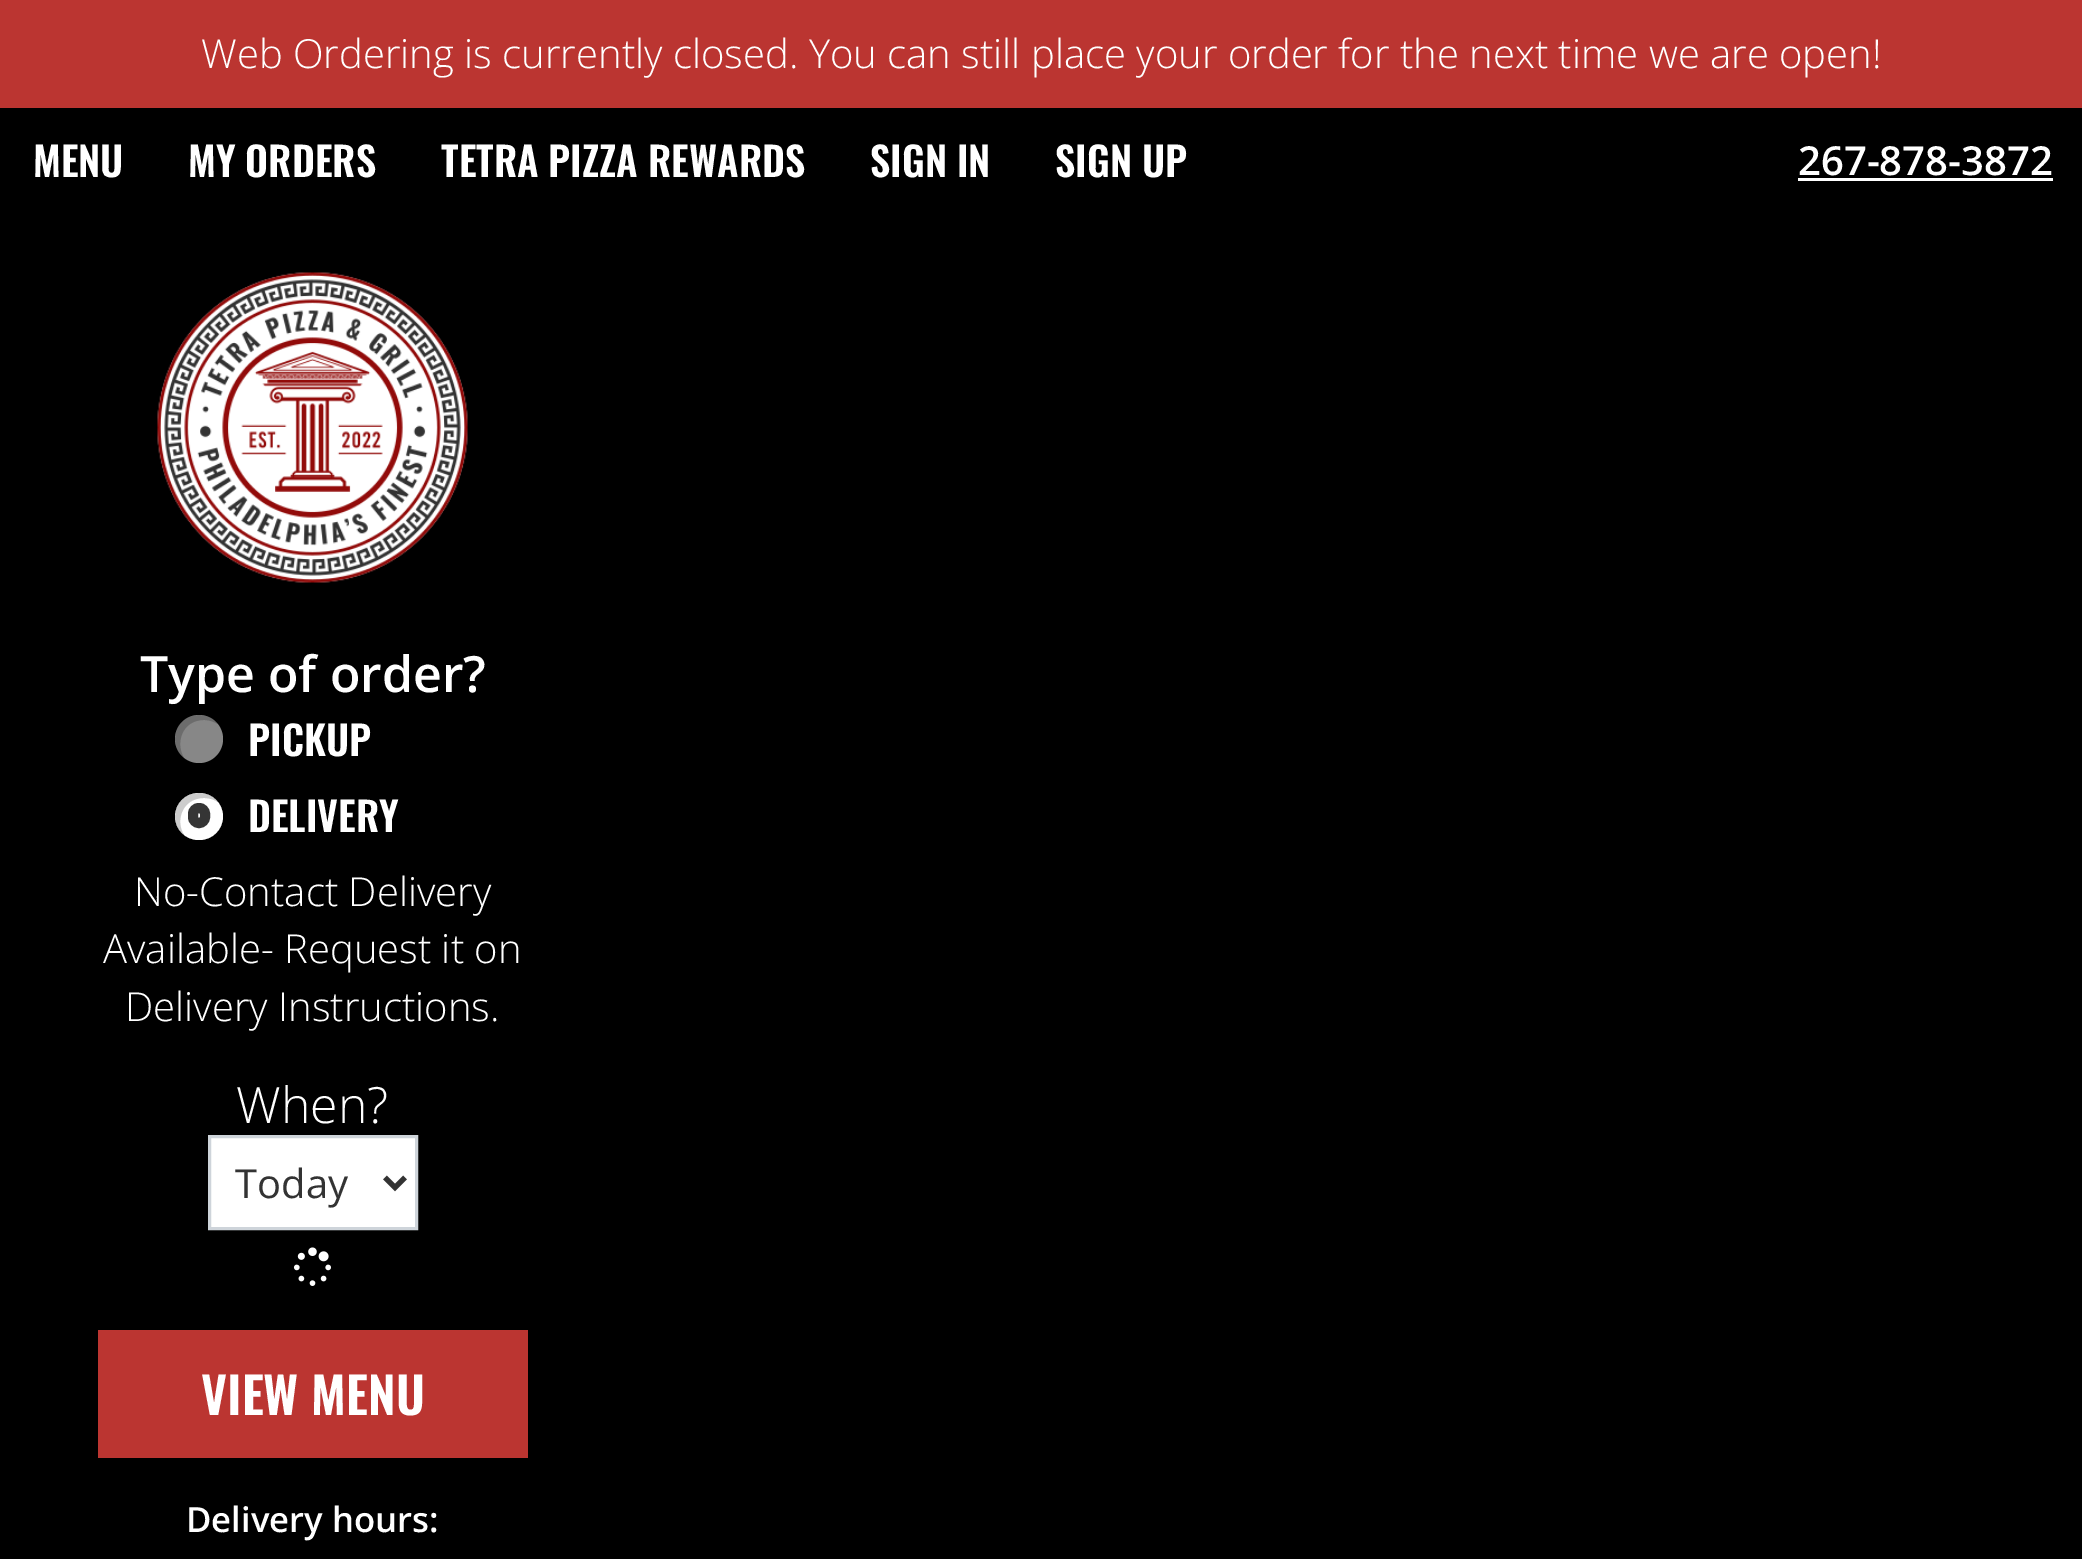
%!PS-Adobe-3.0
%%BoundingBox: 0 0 2082 1559
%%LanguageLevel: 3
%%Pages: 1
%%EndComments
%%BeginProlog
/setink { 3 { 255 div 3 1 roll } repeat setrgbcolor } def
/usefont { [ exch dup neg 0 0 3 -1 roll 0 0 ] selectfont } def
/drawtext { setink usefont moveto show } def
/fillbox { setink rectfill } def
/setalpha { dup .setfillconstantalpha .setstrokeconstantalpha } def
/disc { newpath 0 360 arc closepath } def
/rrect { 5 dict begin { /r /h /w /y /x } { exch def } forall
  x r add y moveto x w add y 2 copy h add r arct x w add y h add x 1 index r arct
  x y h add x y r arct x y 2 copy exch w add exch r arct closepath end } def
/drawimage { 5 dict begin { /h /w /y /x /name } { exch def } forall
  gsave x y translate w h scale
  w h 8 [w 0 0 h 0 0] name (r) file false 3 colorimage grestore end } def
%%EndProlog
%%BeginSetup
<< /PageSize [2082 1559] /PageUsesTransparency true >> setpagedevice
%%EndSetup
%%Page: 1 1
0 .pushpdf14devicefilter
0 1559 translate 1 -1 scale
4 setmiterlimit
0 0 2082 1559 0 0 0 fillbox
0 0 2082 108 187 53 49 fillbox
(Web Ordering is currently closed. You can still place your order for the next time we are open!) 201 68 /OpenSans-Light 40 255 255 255 drawtext
(MENU) 33 177 /Oswald-SemiBold 40 255 255 255 drawtext
(MY ORDERS) 188 177 /Oswald-SemiBold 40 255 255 255 drawtext
(TETRA PIZZA REWARDS) 441 177 /Oswald-SemiBold 40 255 255 255 drawtext
(SIGN IN) 870 177 /Oswald-SemiBold 40 255 255 255 drawtext
(SIGN UP) 1055 177 /Oswald-SemiBold 40 255 255 255 drawtext
(267-878-3872) 1798 175 /OpenSans-SemiBold 40 255 255 255 drawtext
1798 178 255 3 255 255 255 fillbox
(assets/img1.rgb) 157 272 311 311 drawimage
(Type of order?) 140 692 /OpenSans-SemiBold 50 255 255 255 drawtext
135 135 135 setink
199 739 24 disc fill
0.2 setalpha
0 0 0 setink
204 720 moveto 210 720 214 722 218 724 curveto 209 713 192 712 182 722 curveto 172 732 173 749 184 758 curveto 175 743 182 720 204 720 curveto closepath fill
1 setalpha
(PICKUP) 248 756 /Oswald-SemiBold 40 255 255 255 drawtext
175 793 48 47 23.5 rrect fill
0.2 setalpha
0 0 0 setink
204 798 moveto 210 798 215 800 218 802 curveto 210 791 192 790 182 800 curveto 172 810 173 826 184 835 curveto 175 821 182 798 204 798 curveto closepath fill
1 setalpha
53 53 53 setink
10 setlinewidth
193 808 12 15 6 rrect stroke
(DELIVERY) 248 832 /Oswald-SemiBold 40 255 255 255 drawtext
(No-Contact Delivery) 134 906 /OpenSans-Light 40 255 255 255 drawtext
(Available- Request it on) 103 963 /OpenSans-Light 40 255 255 255 drawtext
(Delivery Instructions.) 125 1021 /OpenSans-Light 40 255 255 255 drawtext
(When?) 236 1123 /OpenSans-Light 50 255 255 255 drawtext
209.5 1136.5 moveto 416.5 1136.5 lineto 416.5 1228.5 lineto 209.5 1228.5 lineto closepath gsave fill grestore
206 212 218 setink
3 setlinewidth
stroke
51 51 51 setink
5 setlinewidth
385 1177.5 moveto 395 1187.5 lineto 405 1177.5 lineto stroke
(Today) 235 1198 /OpenSans-Regular 40 51 51 51 drawtext
(assets/img2.rgb) 293 1247 38 39 drawimage
98 1330 430 128 187 53 49 fillbox
(VIEW MENU) 201 1415 /Oswald-SemiBold 50 255 255 255 drawtext
(Delivery hours:) 186 1532 /OpenSans-SemiBold 34.75 255 255 255 drawtext
.poppdf14devicefilter showpage
%%EOF
